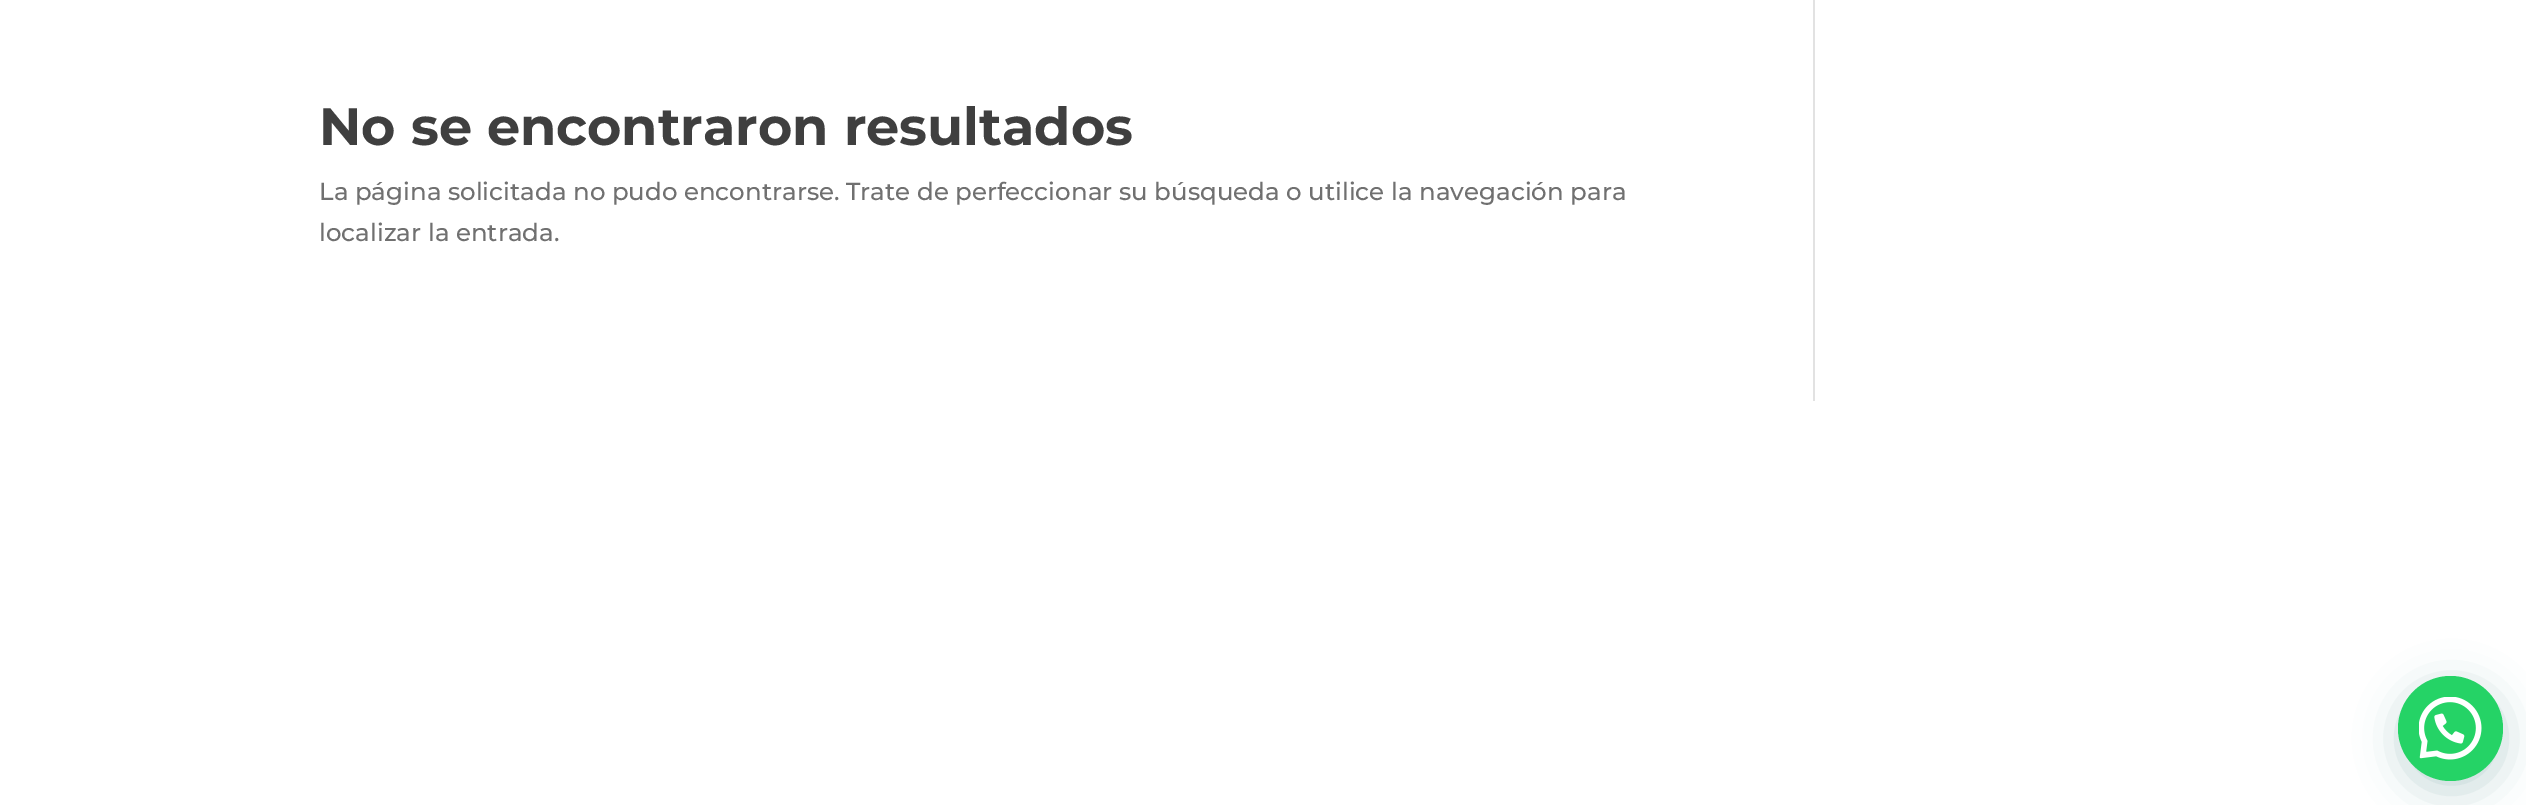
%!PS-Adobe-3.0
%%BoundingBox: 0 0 2526 805
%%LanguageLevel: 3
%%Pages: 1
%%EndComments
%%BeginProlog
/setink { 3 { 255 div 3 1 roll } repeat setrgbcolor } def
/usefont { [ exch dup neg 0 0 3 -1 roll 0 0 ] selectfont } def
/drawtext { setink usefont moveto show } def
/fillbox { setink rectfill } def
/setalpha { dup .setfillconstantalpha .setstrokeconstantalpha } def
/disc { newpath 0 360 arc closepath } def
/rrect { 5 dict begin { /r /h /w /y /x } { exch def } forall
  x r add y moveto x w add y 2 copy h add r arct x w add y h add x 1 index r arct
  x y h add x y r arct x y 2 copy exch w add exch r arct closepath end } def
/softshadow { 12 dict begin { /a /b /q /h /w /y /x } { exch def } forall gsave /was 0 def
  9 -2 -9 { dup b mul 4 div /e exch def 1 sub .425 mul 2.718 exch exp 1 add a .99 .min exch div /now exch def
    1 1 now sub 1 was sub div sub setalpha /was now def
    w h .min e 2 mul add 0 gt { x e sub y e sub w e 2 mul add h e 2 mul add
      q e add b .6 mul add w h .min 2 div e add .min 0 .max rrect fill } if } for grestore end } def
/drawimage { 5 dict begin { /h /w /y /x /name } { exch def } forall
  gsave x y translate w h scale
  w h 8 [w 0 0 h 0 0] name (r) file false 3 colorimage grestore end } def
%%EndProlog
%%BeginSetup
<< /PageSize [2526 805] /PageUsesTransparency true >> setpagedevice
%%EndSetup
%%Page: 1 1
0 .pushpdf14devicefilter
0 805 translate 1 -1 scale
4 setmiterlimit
0 0 2526 805 255 255 255 fillbox
(No se encontraron resultados) 319 145 /Montserrat-Bold 52.5 63 63 63 drawtext
(La página solicitada no pudo encontrarse. Trate de perfeccionar su búsqueda o utilice la navegación para) 319 200 /Montserrat-Medium 24.5 112 112 112 drawtext
(localizar la entrada.) 319 241 /Montserrat-Medium 24.5 112 112 112 drawtext
1813 0 2 401 226 226 226 fillbox
7 94 84 setink
2399 686 105 105 52.5 21 0.24 softshadow
37 211 102 setink
2450.5 728.5 52.5 disc fill
(assets/img1.rgb) 2419 697 63 63 drawimage
.poppdf14devicefilter showpage
%%EOF
